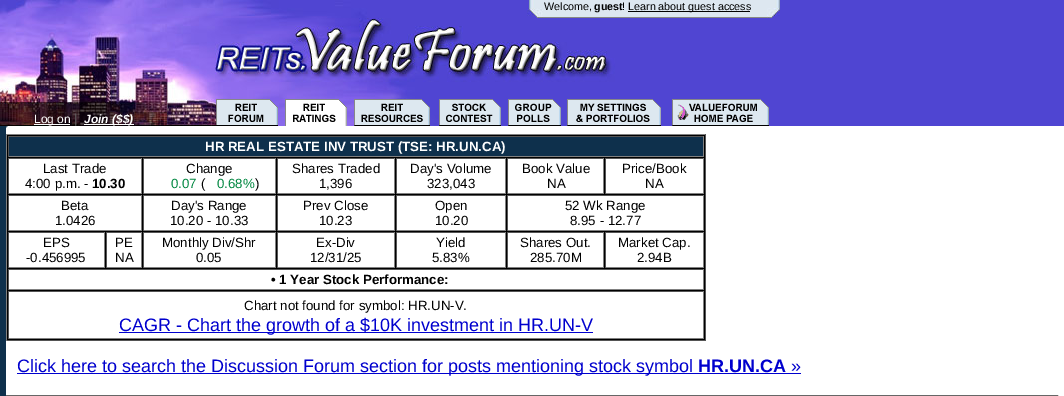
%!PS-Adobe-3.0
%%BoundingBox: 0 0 1064 396
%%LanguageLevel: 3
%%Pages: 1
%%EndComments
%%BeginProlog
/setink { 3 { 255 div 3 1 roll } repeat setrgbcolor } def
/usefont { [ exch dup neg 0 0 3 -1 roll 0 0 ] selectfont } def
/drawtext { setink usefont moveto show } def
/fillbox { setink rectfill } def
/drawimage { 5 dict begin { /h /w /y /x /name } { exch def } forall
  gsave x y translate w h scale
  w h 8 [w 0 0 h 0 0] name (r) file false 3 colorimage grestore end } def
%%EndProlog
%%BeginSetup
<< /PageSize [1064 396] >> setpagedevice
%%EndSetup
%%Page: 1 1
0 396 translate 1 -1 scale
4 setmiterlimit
0 0 1064 396 255 255 255 fillbox
0 128 6 268 14 48 76 fillbox
780 0 284 126 79 69 210 fillbox
(assets/img1.rgb) 167 0 613 18 drawimage
(Welcome,) 544 10 /LiberationSans-Regular 10.75 0 0 0 drawtext
(guest) 594 10 /LiberationSans-Bold 10.75 0 0 0 drawtext
(!) 622 10 /LiberationSans-Regular 10.75 0 0 0 drawtext
628 11 122 1 0 0 0 fillbox
(Learn about guest access) 628 10 /LiberationSans-Regular 10.75 0 0 0 drawtext
(assets/img2.rgb) 0 0 167 126 drawimage
34 124 36 1 255 255 255 fillbox
(Log on) 34 123 /LiberationSans-Regular 12 255 255 255 drawtext
(|) 74 123 /LiberationSans-Regular 13 102 102 102 drawtext
84 124 50 1 255 255 255 fillbox
(Join \($$\)) 84 123 /LiberationSans-BoldItalic 12 255 255 255 drawtext
(assets/img3.rgb) 167 18 613 81 drawimage
(assets/img4.rgb) 167 99 613 27 drawimage
(assets/img5.rgb) 216 99 62 27 drawimage
(assets/img6.rgb) 285 99 62 27 drawimage
(assets/img7.rgb) 354 99 76 27 drawimage
(assets/img8.rgb) 439 99 62 27 drawimage
(assets/img9.rgb) 508 99 53 27 drawimage
(assets/img10.rgb) 567 99 94 27 drawimage
(assets/img11.rgb) 672 99 97 27 drawimage
(assets/img12.rgb) 0 126 8 2 drawimage
7 135 698 205 0 0 0 fillbox
6 134 700 1 128 128 128 fillbox
705 134 1 207 85 85 85 fillbox
6 340 700 1 85 85 85 fillbox
6 134 1 207 128 128 128 fillbox
9 137 694 19 14 48 76 fillbox
8 136 696 1 85 85 85 fillbox
703 136 1 21 128 128 128 fillbox
8 156 696 1 128 128 128 fillbox
8 136 1 21 85 85 85 fillbox
(HR REAL ESTATE INV TRUST \(TSE: HR.UN.CA\)) 205 151 /LiberationSans-Bold 13.3 255 255 255 drawtext
9 159 132 34 255 255 255 fillbox
8 158 134 1 85 85 85 fillbox
141 158 1 36 128 128 128 fillbox
8 193 134 1 128 128 128 fillbox
8 158 1 36 85 85 85 fillbox
(Last Trade) 43 173 /LiberationSans-Regular 13.3 0 0 0 drawtext
(4:00 p.m. -) 25 188 /LiberationSans-Regular 13.3 0 0 0 drawtext
(10.30) 92 188 /LiberationSans-Bold 13.3 0 0 0 drawtext
144 159 131 34 255 255 255 fillbox
143 158 133 1 85 85 85 fillbox
275 158 1 36 128 128 128 fillbox
143 193 133 1 128 128 128 fillbox
143 158 1 36 85 85 85 fillbox
(Change) 186 173 /LiberationSans-Regular 13.3 0 0 0 drawtext
(0.07) 171 188 /LiberationSans-Regular 13.3 0 135 64 drawtext
(\() 201 188 /LiberationSans-Regular 13.3 0 0 0 drawtext
(0.68%) 217 188 /LiberationSans-Regular 13.3 0 135 64 drawtext
(\)) 255 188 /LiberationSans-Regular 13.3 0 0 0 drawtext
278 159 116 34 255 255 255 fillbox
277 158 118 1 85 85 85 fillbox
394 158 1 36 128 128 128 fillbox
277 193 118 1 128 128 128 fillbox
277 158 1 36 85 85 85 fillbox
(Shares Traded) 292 173 /LiberationSans-Regular 13.3 0 0 0 drawtext
(1,396) 319 188 /LiberationSans-Regular 13.3 0 0 0 drawtext
397 159 108 34 255 255 255 fillbox
396 158 110 1 85 85 85 fillbox
505 158 1 36 128 128 128 fillbox
396 193 110 1 128 128 128 fillbox
396 158 1 36 85 85 85 fillbox
(Day's Volume) 410 173 /LiberationSans-Regular 13.3 0 0 0 drawtext
(323,043) 427 188 /LiberationSans-Regular 13.3 0 0 0 drawtext
508 159 95 34 255 255 255 fillbox
507 158 97 1 85 85 85 fillbox
603 158 1 36 128 128 128 fillbox
507 193 97 1 128 128 128 fillbox
507 158 1 36 85 85 85 fillbox
(Book Value) 522 173 /LiberationSans-Regular 13.3 0 0 0 drawtext
(NA) 547 188 /LiberationSans-Regular 13.3 0 0 0 drawtext
606 159 97 34 255 255 255 fillbox
605 158 99 1 85 85 85 fillbox
703 158 1 36 128 128 128 fillbox
605 193 99 1 128 128 128 fillbox
605 158 1 36 85 85 85 fillbox
(Price/Book) 622 173 /LiberationSans-Regular 13.3 0 0 0 drawtext
(NA) 645 188 /LiberationSans-Regular 13.3 0 0 0 drawtext
9 196 132 34 255 255 255 fillbox
8 195 134 1 85 85 85 fillbox
141 195 1 36 128 128 128 fillbox
8 230 134 1 128 128 128 fillbox
8 195 1 36 85 85 85 fillbox
(Beta) 61 210 /LiberationSans-Regular 13.3 0 0 0 drawtext
(1.0426) 55 225 /LiberationSans-Regular 13.3 0 0 0 drawtext
144 196 131 34 255 255 255 fillbox
143 195 133 1 85 85 85 fillbox
275 195 1 36 128 128 128 fillbox
143 230 133 1 128 128 128 fillbox
143 195 1 36 85 85 85 fillbox
(Day's Range) 171 210 /LiberationSans-Regular 13.3 0 0 0 drawtext
(10.20 - 10.33) 170 225 /LiberationSans-Regular 13.3 0 0 0 drawtext
278 196 116 34 255 255 255 fillbox
277 195 118 1 85 85 85 fillbox
394 195 1 36 128 128 128 fillbox
277 230 118 1 128 128 128 fillbox
277 195 1 36 85 85 85 fillbox
(Prev Close) 303 210 /LiberationSans-Regular 13.3 0 0 0 drawtext
(10.23) 319 225 /LiberationSans-Regular 13.3 0 0 0 drawtext
397 196 108 34 255 255 255 fillbox
396 195 110 1 85 85 85 fillbox
505 195 1 36 128 128 128 fillbox
396 230 110 1 128 128 128 fillbox
396 195 1 36 85 85 85 fillbox
(Open) 435 210 /LiberationSans-Regular 13.3 0 0 0 drawtext
(10.20) 435 225 /LiberationSans-Regular 13.3 0 0 0 drawtext
508 196 195 34 255 255 255 fillbox
507 195 197 1 85 85 85 fillbox
703 195 1 36 128 128 128 fillbox
507 230 197 1 128 128 128 fillbox
507 195 1 36 85 85 85 fillbox
(52 Wk Range) 565 210 /LiberationSans-Regular 13.3 0 0 0 drawtext
(8.95 - 12.77) 570 225 /LiberationSans-Regular 13.3 0 0 0 drawtext
9 233 95 34 255 255 255 fillbox
8 232 97 1 85 85 85 fillbox
104 232 1 36 128 128 128 fillbox
8 267 97 1 128 128 128 fillbox
8 232 1 36 85 85 85 fillbox
(EPS) 43 247 /LiberationSans-Regular 13.3 0 0 0 drawtext
(-0.456995) 26 262 /LiberationSans-Regular 13.3 0 0 0 drawtext
107 233 34 34 255 255 255 fillbox
106 232 36 1 85 85 85 fillbox
141 232 1 36 128 128 128 fillbox
106 267 36 1 128 128 128 fillbox
106 232 1 36 85 85 85 fillbox
(PE) 115 247 /LiberationSans-Regular 13.3 0 0 0 drawtext
(NA) 115 262 /LiberationSans-Regular 13.3 0 0 0 drawtext
144 233 131 34 255 255 255 fillbox
143 232 133 1 85 85 85 fillbox
275 232 1 36 128 128 128 fillbox
143 267 133 1 128 128 128 fillbox
143 232 1 36 85 85 85 fillbox
(Monthly Div/Shr) 162 247 /LiberationSans-Regular 13.3 0 0 0 drawtext
(0.05) 196 262 /LiberationSans-Regular 13.3 0 0 0 drawtext
278 233 116 34 255 255 255 fillbox
277 232 118 1 85 85 85 fillbox
394 232 1 36 128 128 128 fillbox
277 267 118 1 128 128 128 fillbox
277 232 1 36 85 85 85 fillbox
(Ex-Div) 316 247 /LiberationSans-Regular 13.3 0 0 0 drawtext
(12/31/25) 310 262 /LiberationSans-Regular 13.3 0 0 0 drawtext
397 233 108 34 255 255 255 fillbox
396 232 110 1 85 85 85 fillbox
505 232 1 36 128 128 128 fillbox
396 267 110 1 128 128 128 fillbox
396 232 1 36 85 85 85 fillbox
(Yield) 436 247 /LiberationSans-Regular 13.3 0 0 0 drawtext
(5.83%) 432 262 /LiberationSans-Regular 13.3 0 0 0 drawtext
508 233 95 34 255 255 255 fillbox
507 232 97 1 85 85 85 fillbox
603 232 1 36 128 128 128 fillbox
507 267 97 1 128 128 128 fillbox
507 232 1 36 85 85 85 fillbox
(Shares Out.) 520 247 /LiberationSans-Regular 13.3 0 0 0 drawtext
(285.70M) 530 262 /LiberationSans-Regular 13.3 0 0 0 drawtext
606 233 97 34 255 255 255 fillbox
605 232 99 1 85 85 85 fillbox
703 232 1 36 128 128 128 fillbox
605 267 99 1 128 128 128 fillbox
605 232 1 36 85 85 85 fillbox
(Market Cap.) 618 247 /LiberationSans-Regular 13.3 0 0 0 drawtext
(2.94B) 637 262 /LiberationSans-Regular 13.3 0 0 0 drawtext
9 270 694 19 255 255 255 fillbox
8 269 696 1 85 85 85 fillbox
703 269 1 21 128 128 128 fillbox
8 289 696 1 128 128 128 fillbox
8 269 1 21 85 85 85 fillbox
(• 1 Year Stock Performance:) 271 284 /LiberationSans-Bold 13.3 0 0 0 drawtext
9 292 694 46 255 255 255 fillbox
8 291 696 1 85 85 85 fillbox
703 291 1 48 128 128 128 fillbox
8 338 696 1 128 128 128 fillbox
8 291 1 48 85 85 85 fillbox
(Chart not found for symbol: HR.UN-V.) 244 310 /LiberationSans-Regular 13.3 0 0 0 drawtext
119 332 474 1 0 0 206 fillbox
(CAGR - Chart the growth of a $10K investment in HR.UN-V) 119 331 /LiberationSans-Regular 18 0 0 206 drawtext
17 373 784 1 0 0 206 fillbox
(Click here to search the Discussion Forum section for posts mentioning stock symbol) 17 372 /LiberationSans-Regular 18 0 0 206 drawtext
(HR.UN.CA) 698 372 /LiberationSans-Bold 18 0 0 206 drawtext
(») 791 372 /LiberationSans-Regular 18 0 0 206 drawtext
102 102 102 setink
6.5 395.5 1051 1 rectstroke
showpage
%%EOF
